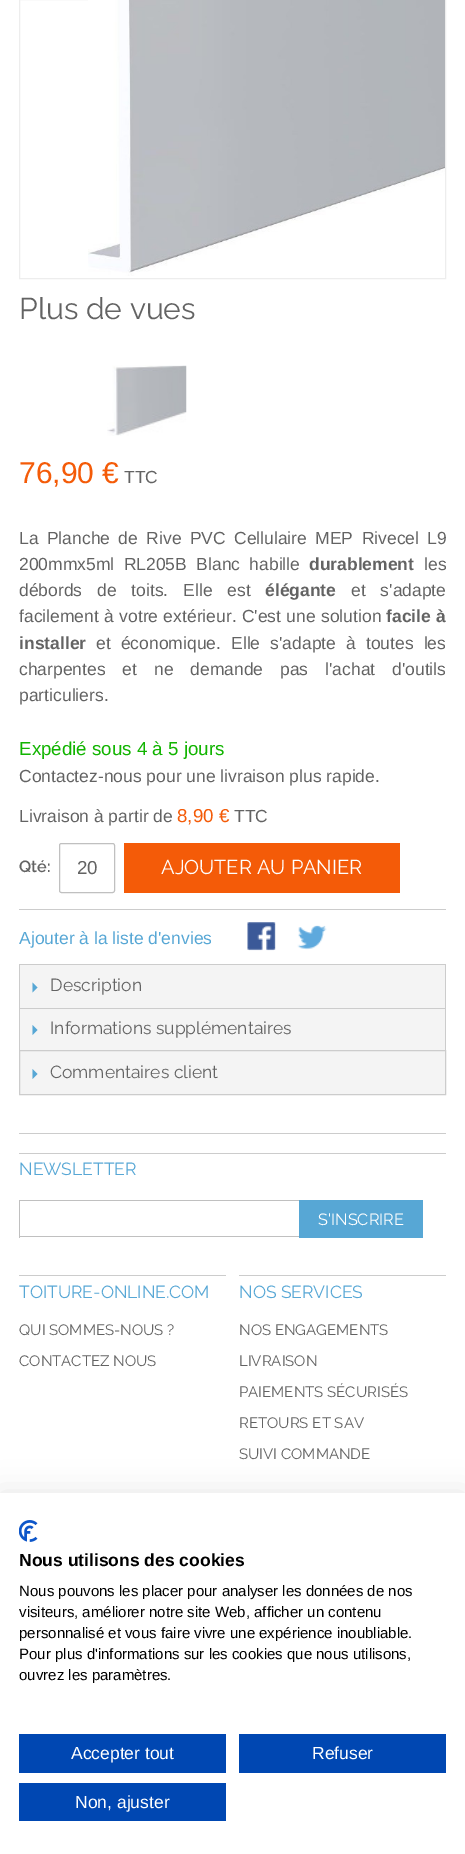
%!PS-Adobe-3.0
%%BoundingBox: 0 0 465 1854
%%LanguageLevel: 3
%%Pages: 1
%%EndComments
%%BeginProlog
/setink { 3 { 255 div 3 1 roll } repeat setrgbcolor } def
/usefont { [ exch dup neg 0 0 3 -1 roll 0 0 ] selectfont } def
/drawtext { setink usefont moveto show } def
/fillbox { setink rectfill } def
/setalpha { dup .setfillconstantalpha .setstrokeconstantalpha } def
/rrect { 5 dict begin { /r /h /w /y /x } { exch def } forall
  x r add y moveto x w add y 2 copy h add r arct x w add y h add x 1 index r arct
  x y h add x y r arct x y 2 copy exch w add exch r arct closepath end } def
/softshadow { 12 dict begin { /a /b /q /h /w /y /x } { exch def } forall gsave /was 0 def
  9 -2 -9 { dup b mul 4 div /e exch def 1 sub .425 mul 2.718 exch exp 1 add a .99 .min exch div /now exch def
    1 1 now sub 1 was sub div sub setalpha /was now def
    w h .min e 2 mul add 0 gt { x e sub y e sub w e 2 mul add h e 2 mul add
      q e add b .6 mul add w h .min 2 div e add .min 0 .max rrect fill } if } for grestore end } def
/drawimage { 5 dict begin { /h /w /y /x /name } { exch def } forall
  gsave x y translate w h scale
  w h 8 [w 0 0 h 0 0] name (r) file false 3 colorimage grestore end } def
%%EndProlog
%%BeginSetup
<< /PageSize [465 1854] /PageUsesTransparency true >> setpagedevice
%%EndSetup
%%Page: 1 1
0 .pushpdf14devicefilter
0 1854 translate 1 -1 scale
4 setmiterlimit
0 0 465 1854 255 255 255 fillbox
237 237 237 setink
19.5 -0.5 426 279 rectstroke
(assets/img1.rgb) 88 0 357 276 drawimage
(Plus de vues) 19 319 /Raleway-Regular 30 99 99 99 drawtext
(assets/img2.rgb) 107 365 80 71 drawimage
(76,90 €) 19 483 /LiberationSans-Regular 30 244 91 8 drawtext
(TTC) 124 483 /LiberationSans-Regular 17.5 99 99 99 drawtext
19 544 moveto 3.5 0 32 (La Planche de Rive PVC Cellulaire MEP Rivecel L9) widthshow
19 570 moveto 4.5 0 32 (200mmx5ml RL205B Blanc habille) widthshow
(durablement) 309 570 /LiberationSans-Bold 17.5 99 99 99 drawtext
(les) 424 570 /LiberationSans-Regular 17.5 99 99 99 drawtext
19 596 moveto 10 0 32 (débords de toits. Elle est) widthshow
(élégante) 265 596 /LiberationSans-Bold 17.5 99 99 99 drawtext
/LiberationSans-Regular 17.5 usefont
351 596 moveto 10 0 32 (et s'adapte) widthshow
19 622 moveto 0.5 0 32 (facilement à votre extérieur. C'est une solution) widthshow
(facile à) 386 622 /LiberationSans-Bold 17.5 99 99 99 drawtext
(installer) 19 649 /LiberationSans-Bold 17.5 99 99 99 drawtext
/LiberationSans-Regular 17.5 usefont
96 649 moveto 5.25 0 32 (et économique. Elle s'adapte à toutes les) widthshow
19 675 moveto 12 0 32 (charpentes et ne demande pas l'achat d'outils) widthshow
(particuliers.) 19 701 /LiberationSans-Regular 17.5 99 99 99 drawtext
(Expédié sous 4 à 5 jours) 19 755 /LiberationSans-Regular 18.75 17 180 0 drawtext
(Contactez-nous pour une livraison plus rapide.) 19 782 /LiberationSans-Regular 17.5 99 99 99 drawtext
(Livraison à partir de) 19 822 /LiberationSans-Regular 17.5 99 99 99 drawtext
(8,90 €) 177 822 /LiberationSans-Regular 18.75 244 91 8 drawtext
(TTC) 234 822 /LiberationSans-Regular 17.5 99 99 99 drawtext
19 909 427 1 204 204 204 fillbox
(Qté:) 19 872 /Raleway-SemiBold 16.25 99 99 99 drawtext
192 192 192 setink
59.5 843.5 55 49 2 rrect stroke
(20) 77 874 /LiberationSans-Regular 18.75 99 99 99 drawtext
124 843 276 50 244 91 8 fillbox
(AJOUTER AU PANIER) 161 874 /Raleway-Regular 20 255 255 255 drawtext
(Ajouter à la liste d'envies) 19 944 /LiberationSans-Regular 17.5 87 167 213 drawtext
(assets/img3.rgb) 247 922 29 29 drawimage
(assets/img4.rgb) 297 925 30 25 drawimage
20 965 425 43 244 244 244 fillbox
19 964 427 1 204 204 204 fillbox
445 964 1 44 204 204 204 fillbox
19 964 1 44 204 204 204 fillbox
87 167 213 setink
32.5 992.5 moveto 32.5 982.5 lineto 37.5 987.5 lineto closepath fill
(Description) 50 991 /Raleway-Regular 17.5 99 99 99 drawtext
20 1009 425 41 244 244 244 fillbox
19 1008 427 1 204 204 204 fillbox
445 1008 1 42 204 204 204 fillbox
19 1008 1 42 204 204 204 fillbox
87 167 213 setink
32.5 1035 moveto 32.5 1025 lineto 37.5 1030 lineto closepath fill
(Informations supplémentaires) 50 1034 /Raleway-Regular 17.5 99 99 99 drawtext
244 244 244 setink
19.5 1050.5 moveto 445.5 1050.5 lineto 445.5 1094.5 lineto 19.5 1094.5 lineto closepath gsave fill grestore
204 204 204 setink
stroke
87 167 213 setink
32.5 1079 moveto 32.5 1069 lineto 37.5 1074 lineto closepath fill
(Commentaires client) 50 1078 /Raleway-Regular 17.5 99 99 99 drawtext
19 1133 427 1 204 204 204 fillbox
19 1153 427 1 204 204 204 fillbox
(NEWSLETTER) 19 1175 /Raleway-Regular 17.5 87 167 213 drawtext
19 1200 280 1 192 192 192 fillbox
19 1236 280 1 192 192 192 fillbox
19 1200 1 38 192 192 192 fillbox
299 1200 124 38 87 167 213 fillbox
(S'INSCRIRE) 318 1225 /Raleway-Regular 16.25 255 255 255 drawtext
19 1275 207 1 204 204 204 fillbox
(TOITURE-ONLINE.COM) 19 1298 /Raleway-Regular 17.5 87 167 213 drawtext
(QUI SOMMES-NOUS ?) 19 1335 /Raleway-Regular 15 99 99 99 drawtext
(CONTACTEZ NOUS) 19 1366 /Raleway-Regular 15 99 99 99 drawtext
239 1275 207 1 204 204 204 fillbox
(NOS SERVICES) 239 1298 /Raleway-Regular 17.5 87 167 213 drawtext
(NOS ENGAGEMENTS) 239 1335 /Raleway-Regular 15 99 99 99 drawtext
(LIVRAISON) 239 1366 /Raleway-Regular 15 99 99 99 drawtext
(PAIEMENTS SÉCURISÉS) 239 1397 /Raleway-Regular 15 99 99 99 drawtext
(RETOURS ET SAV) 239 1428 /Raleway-Regular 15 99 99 99 drawtext
(SUIVI COMMANDE) 239 1459 /Raleway-Regular 15 99 99 99 drawtext
0 0 0 setink
0 1493 465 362 0 15 0.1 softshadow
0 1493 465 361 255 255 255 fillbox
(assets/img5.rgb) 19 1520 19 22 drawimage
(Nous utilisons des cookies) 19 1566 /LiberationSans-Bold 17.5 0 0 0 drawtext
(Nous pouvons les placer pour analyser les données de nos) 19 1596 /LiberationSans-Regular 15 0 0 0 drawtext
(visiteurs, améliorer notre site Web, afficher un contenu) 19 1617 /LiberationSans-Regular 15 0 0 0 drawtext
(personnalisé et vous faire vivre une expérience inoubliable.) 19 1638 /LiberationSans-Regular 15 0 0 0 drawtext
(Pour plus d'informations sur les cookies que nous utilisons,) 19 1659 /LiberationSans-Regular 15 0 0 0 drawtext
(ouvrez les paramètres.) 19 1680 /LiberationSans-Regular 15 0 0 0 drawtext
19 1734 207 39 0 71 178 fillbox
(Accepter tout) 71 1759 /LiberationSans-Regular 17.5 255 255 255 drawtext
239 1734 207 39 0 71 178 fillbox
(Refuser) 312 1759 /LiberationSans-Regular 17.5 255 255 255 drawtext
19 1783 207 38 0 71 178 fillbox
(Non, ajuster) 75 1808 /LiberationSans-Regular 17.5 255 255 255 drawtext
.poppdf14devicefilter showpage
%%EOF
